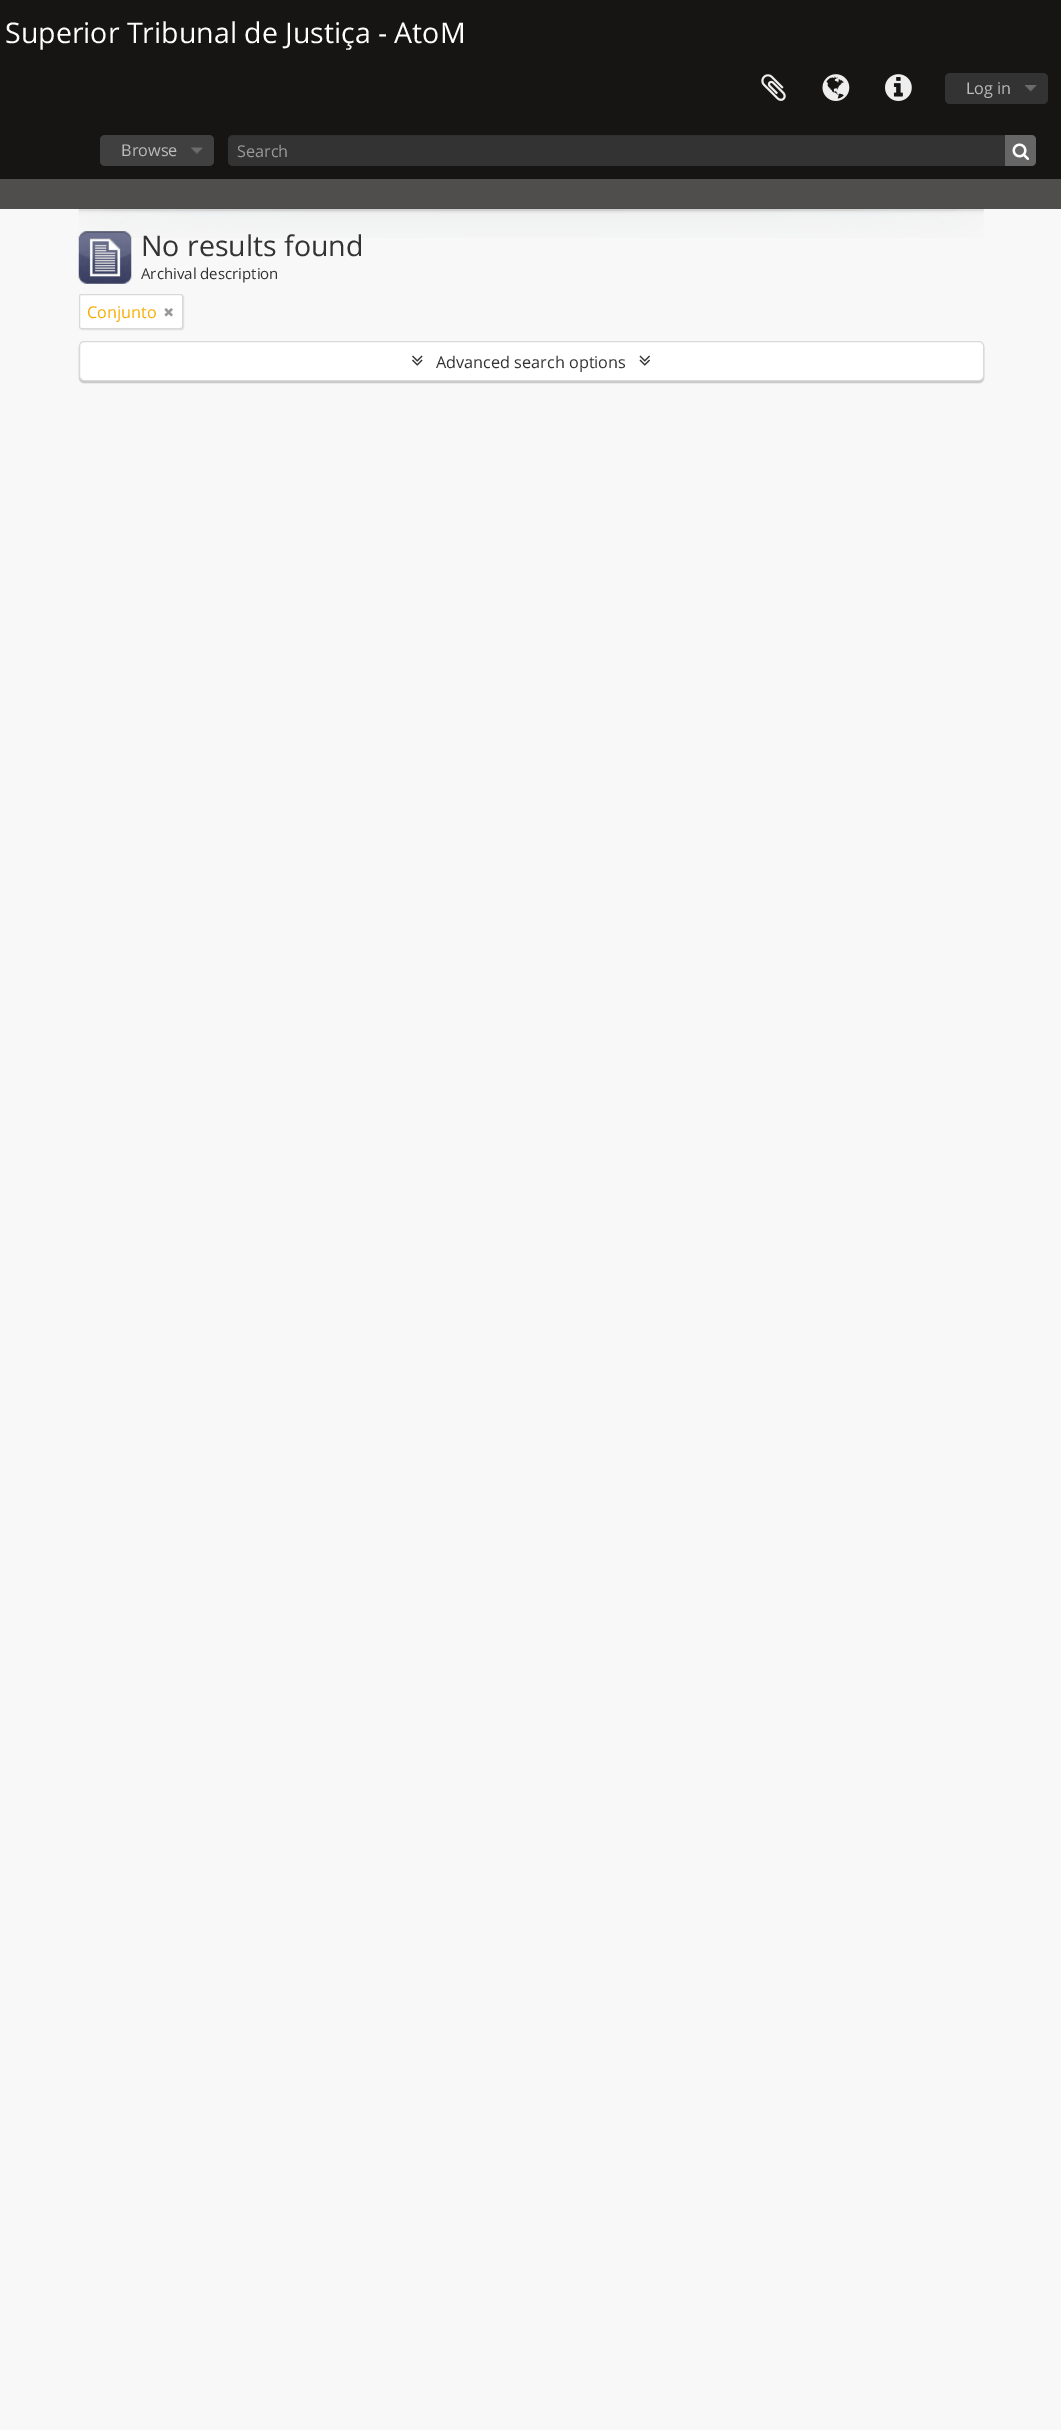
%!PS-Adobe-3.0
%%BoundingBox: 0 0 1061 2430
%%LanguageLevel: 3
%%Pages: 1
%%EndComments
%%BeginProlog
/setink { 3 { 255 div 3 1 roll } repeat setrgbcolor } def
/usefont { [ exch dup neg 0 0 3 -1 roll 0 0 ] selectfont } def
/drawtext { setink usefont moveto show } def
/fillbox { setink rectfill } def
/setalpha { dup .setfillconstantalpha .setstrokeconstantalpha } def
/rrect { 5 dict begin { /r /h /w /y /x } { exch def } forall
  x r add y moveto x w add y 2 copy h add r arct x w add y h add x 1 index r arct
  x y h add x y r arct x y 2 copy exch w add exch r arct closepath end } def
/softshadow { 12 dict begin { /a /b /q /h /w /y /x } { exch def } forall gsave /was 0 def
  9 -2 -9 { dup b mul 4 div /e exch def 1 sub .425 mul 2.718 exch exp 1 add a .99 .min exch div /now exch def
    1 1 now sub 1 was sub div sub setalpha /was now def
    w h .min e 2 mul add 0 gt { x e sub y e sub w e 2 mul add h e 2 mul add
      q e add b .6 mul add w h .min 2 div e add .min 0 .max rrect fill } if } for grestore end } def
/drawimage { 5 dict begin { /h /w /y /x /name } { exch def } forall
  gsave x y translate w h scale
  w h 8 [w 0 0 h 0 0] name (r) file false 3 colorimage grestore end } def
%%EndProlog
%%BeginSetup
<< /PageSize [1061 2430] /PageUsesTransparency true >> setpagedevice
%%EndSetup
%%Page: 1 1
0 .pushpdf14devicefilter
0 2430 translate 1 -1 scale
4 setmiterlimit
0 0 1061 2430 248 248 248 fillbox
0 0 1061 179 22 21 20 fillbox
(Superior Tribunal de Justiça - AtoM) 5 43 /OpenSans-Regular 28.5 255 255 255 drawtext
(assets/img1.rgb) 761 74 25 27 drawimage
(assets/img2.rgb) 822 74 28 27 drawimage
(assets/img3.rgb) 885 74 27 27 drawimage
51 51 51 setink
945 73 103 31 5 rrect fill
(assets/img4.rgb) 1025 85 12 7 drawimage
(Log in) 966 94 /OpenSans-Regular 16.25 187 187 187 drawtext
64 64 64 setink
100 135 114 31 5 rrect fill
(assets/img5.rgb) 191 147 12 7 drawimage
(Browse) 121 156 /OpenSans-Regular 16.25 187 187 187 drawtext
51 51 51 setink
228 135 808 31 5 rrect fill
0.07 setalpha
0 0 0 setink
232 136 moveto 1031 136 lineto 1034 136 1036 138 1036 141 curveto 1036 140 lineto 1036 137 1034 135 1031 135 curveto 233 135 lineto 230 135 228 137 228 140 curveto 228 141 lineto 228 138 230 136 232 136 curveto closepath fill
1 setalpha
(Search) 237 157 /OpenSans-Regular 16.25 153 153 153 drawtext
102 102 102 setink
1005 135 moveto 1031 135 lineto 1034 135 1036 137 1036 140 curveto 1036 161 lineto 1036 164 1034 166 1031 166 curveto 1005 166 lineto closepath fill
(assets/img6.rgb) 1012 143 18 17 drawimage
(assets/img7.rgb) 78 208 906 30 drawimage
0.75 setalpha
0 179 1061 30 22 21 20 fillbox
1 setalpha
(assets/img8.rgb) 78 231 54 53 drawimage
(No results found) 141 256 /OpenSans-Regular 28.5 51 51 51 drawtext
(Archival description) 141 279 /OpenSans-Regular 15 51 51 51 drawtext
0 0 0 setink
80 295 104 35 2.5 0.5 0.1 softshadow
255 255 255 setink
79.5 294.5 103 34 2 rrect gsave fill grestore
217 217 217 setink
stroke
(Conjunto) 87 318 /OpenSans-Regular 16.25 246 172 0 drawtext
(assets/img9.rgb) 164 308 9 9 drawimage
0 0 0 setink
79 343 905 40 5 0.5 0.2 softshadow
255 255 255 setink
79.5 341.5 904 39 4.5 rrect gsave fill grestore
217 217 217 setink
stroke
(assets/img10.rgb) 412 355 11 11 drawimage
(Advanced search options) 436 368 /OpenSans-Regular 16.25 51 51 51 drawtext
(assets/img11.rgb) 639 355 11 11 drawimage
.poppdf14devicefilter showpage
%%EOF
